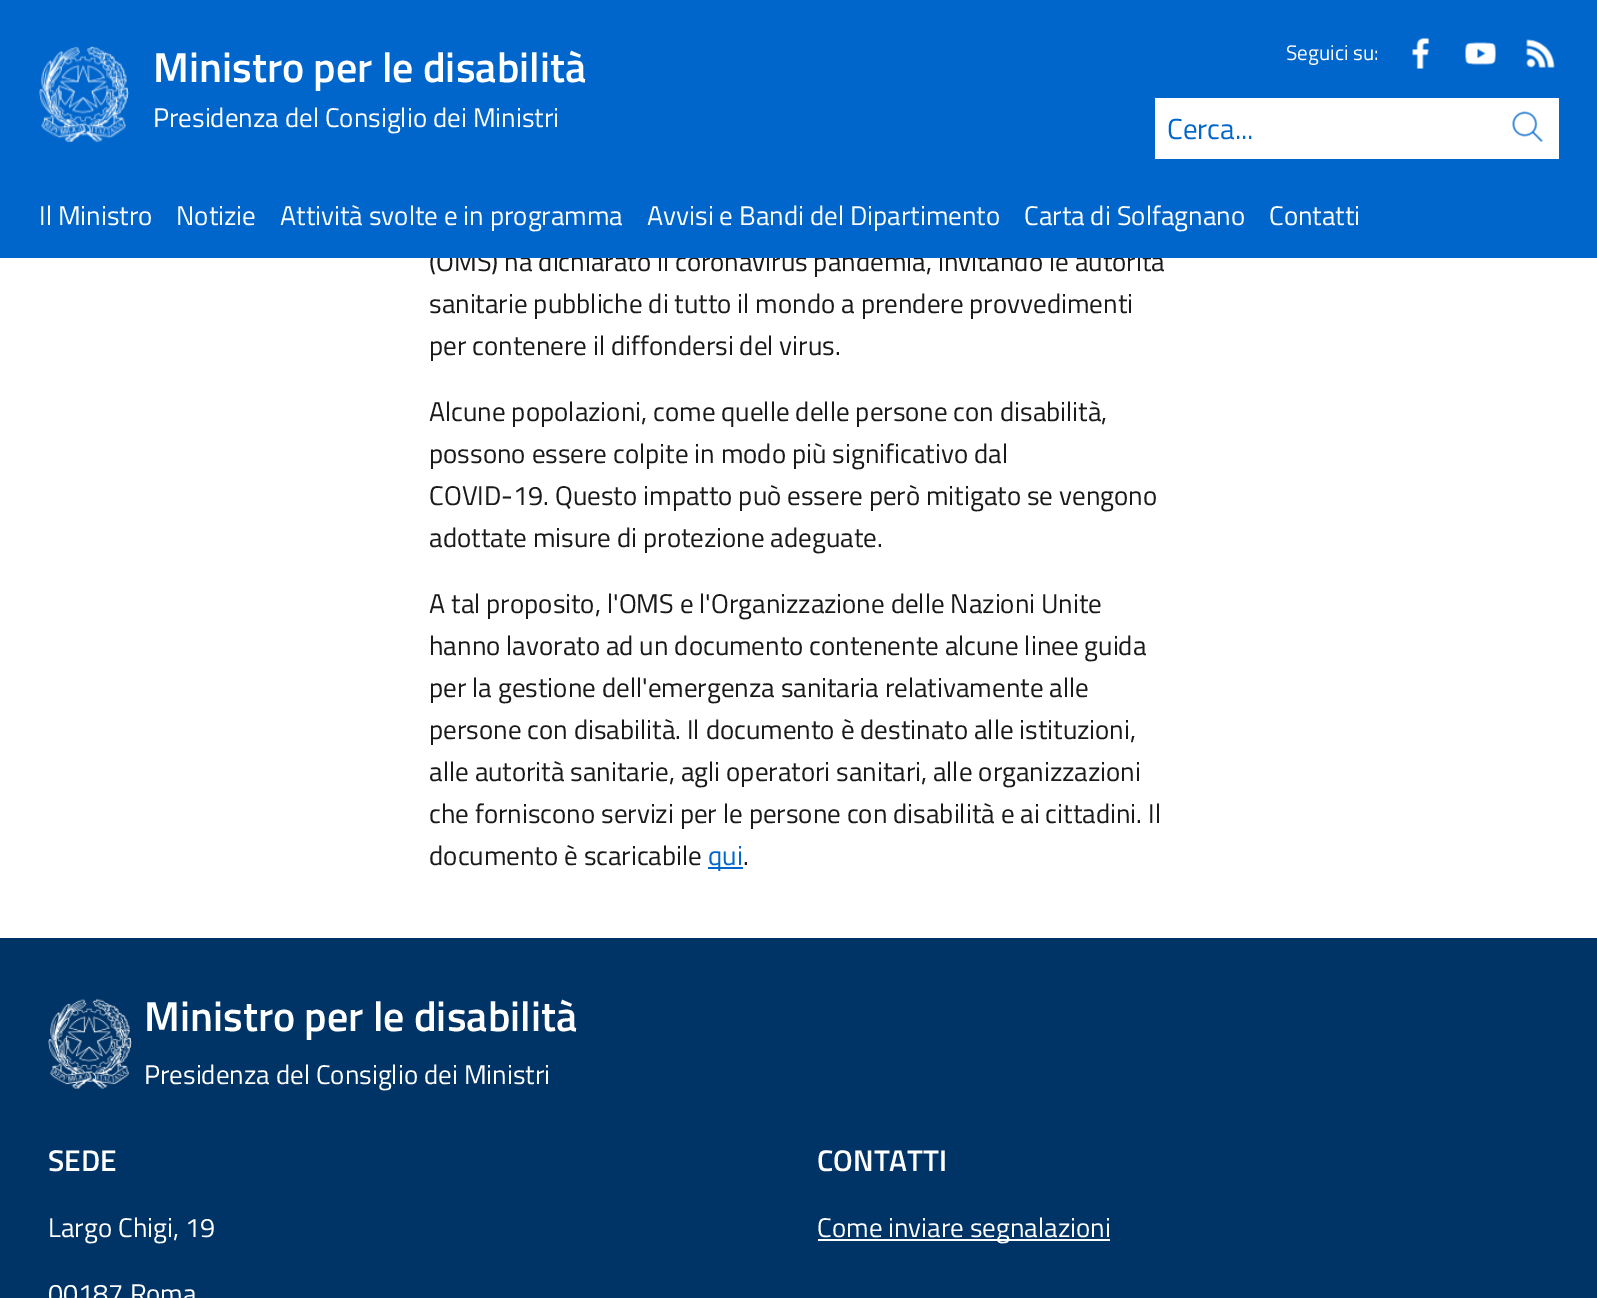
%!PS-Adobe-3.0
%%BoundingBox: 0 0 1597 1298
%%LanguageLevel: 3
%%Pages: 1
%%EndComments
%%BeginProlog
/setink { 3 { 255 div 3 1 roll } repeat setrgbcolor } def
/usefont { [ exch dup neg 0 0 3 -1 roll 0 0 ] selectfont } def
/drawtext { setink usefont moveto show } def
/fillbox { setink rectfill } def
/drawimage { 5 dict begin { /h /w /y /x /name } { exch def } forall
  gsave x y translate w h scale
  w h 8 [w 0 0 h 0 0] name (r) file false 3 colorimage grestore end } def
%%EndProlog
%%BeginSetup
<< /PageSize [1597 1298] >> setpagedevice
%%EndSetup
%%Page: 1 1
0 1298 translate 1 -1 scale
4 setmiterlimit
0 0 1597 1298 255 255 255 fillbox
(\(OMS\) ha dichiarato il coronavirus pandemia, invitando le autorità) 429 271 /TitilliumWeb-Regular 27 26 26 26 drawtext
0 0 1597 258 0 102 204 fillbox
(assets/img1.rgb) 39 46 90 96 drawimage
(Ministro per le disabilità) 153 82 /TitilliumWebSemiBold-SemiBold 42 255 255 255 drawtext
(Presidenza del Consiglio dei Ministri) 153 127 /TitilliumWeb-Regular 27 255 255 255 drawtext
(Seguici su:) 1286 60 /TitilliumWeb-Regular 21 255 255 255 drawtext
(assets/img2.rgb) 1412 38 18 31 drawimage
(assets/img3.rgb) 1465 42 31 23 drawimage
(assets/img4.rgb) 1526 39 29 29 drawimage
1155 98 404 61 255 255 255 fillbox
(Cerca...) 1167 139 /TitilliumWeb-Regular 29 0 102 204 drawtext
(assets/img5.rgb) 1512 111 31 31 drawimage
(Il Ministro) 39 225 /TitilliumWeb-Regular 27 255 255 255 drawtext
(Notizie) 176 225 /TitilliumWeb-Regular 27 255 255 255 drawtext
(Attività svolte e in programma) 280 225 /TitilliumWeb-Regular 27 255 255 255 drawtext
(Avvisi e Bandi del Dipartimento) 647 225 /TitilliumWeb-Regular 27 255 255 255 drawtext
(Carta di Solfagnano) 1024 225 /TitilliumWeb-Regular 27 255 255 255 drawtext
(Contatti) 1269 225 /TitilliumWeb-Regular 27 255 255 255 drawtext
(sanitarie pubbliche di tutto il mondo a prendere provvedimenti) 429 313 /TitilliumWeb-Regular 27 26 26 26 drawtext
(per contenere il diffondersi del virus.) 429 355 /TitilliumWeb-Regular 27 26 26 26 drawtext
(Alcune popolazioni, come quelle delle persone con disabilità,) 429 421 /TitilliumWeb-Regular 27 26 26 26 drawtext
(possono essere colpite in modo più significativo dal) 429 463 /TitilliumWeb-Regular 27 26 26 26 drawtext
(COVID-19. Questo impatto può essere però mitigato se vengono) 429 505 /TitilliumWeb-Regular 27 26 26 26 drawtext
(adottate misure di protezione adeguate.) 429 547 /TitilliumWeb-Regular 27 26 26 26 drawtext
(A tal proposito, l'OMS e l'Organizzazione delle Nazioni Unite) 429 613 /TitilliumWeb-Regular 27 26 26 26 drawtext
(hanno lavorato ad un documento contenente alcune linee guida) 429 655 /TitilliumWeb-Regular 27 26 26 26 drawtext
(per la gestione dell'emergenza sanitaria relativamente alle) 429 697 /TitilliumWeb-Regular 27 26 26 26 drawtext
(persone con disabilità. Il documento è destinato alle istituzioni,) 429 739 /TitilliumWeb-Regular 27 26 26 26 drawtext
(alle autorità sanitarie, agli operatori sanitari, alle organizzazioni) 429 781 /TitilliumWeb-Regular 27 26 26 26 drawtext
(che forniscono servizi per le persone con disabilità e ai cittadini. Il) 429 823 /TitilliumWeb-Regular 27 26 26 26 drawtext
(documento è scaricabile) 429 865 /TitilliumWeb-Regular 27 26 26 26 drawtext
708 867 35 2 0 102 204 fillbox
(qui) 708 865 /TitilliumWeb-Regular 27 0 102 204 drawtext
(.) 743 865 /TitilliumWeb-Regular 27 26 26 26 drawtext
0 938 1597 360 0 51 102 fillbox
(assets/img6.rgb) 48 998 84 91 drawimage
(Ministro per le disabilità) 144 1031 /TitilliumWebSemiBold-SemiBold 42 255 255 255 drawtext
(Presidenza del Consiglio dei Ministri) 144 1084 /TitilliumWeb-Regular 27 255 255 255 drawtext
(SEDE) 48 1171 /TitilliumWebSemiBold-SemiBold 30 255 255 255 drawtext
(Largo Chigi, 19) 48 1237 /TitilliumWeb-Regular 27 255 255 255 drawtext
(00187 Roma) 48 1303 /TitilliumWeb-Regular 27 255 255 255 drawtext
(CONTATTI) 817 1171 /TitilliumWebSemiBold-SemiBold 30 255 255 255 drawtext
818 1239 292 2 255 255 255 fillbox
(Come inviare segnalazioni) 817 1237 /TitilliumWeb-Regular 27 255 255 255 drawtext
showpage
%%EOF
